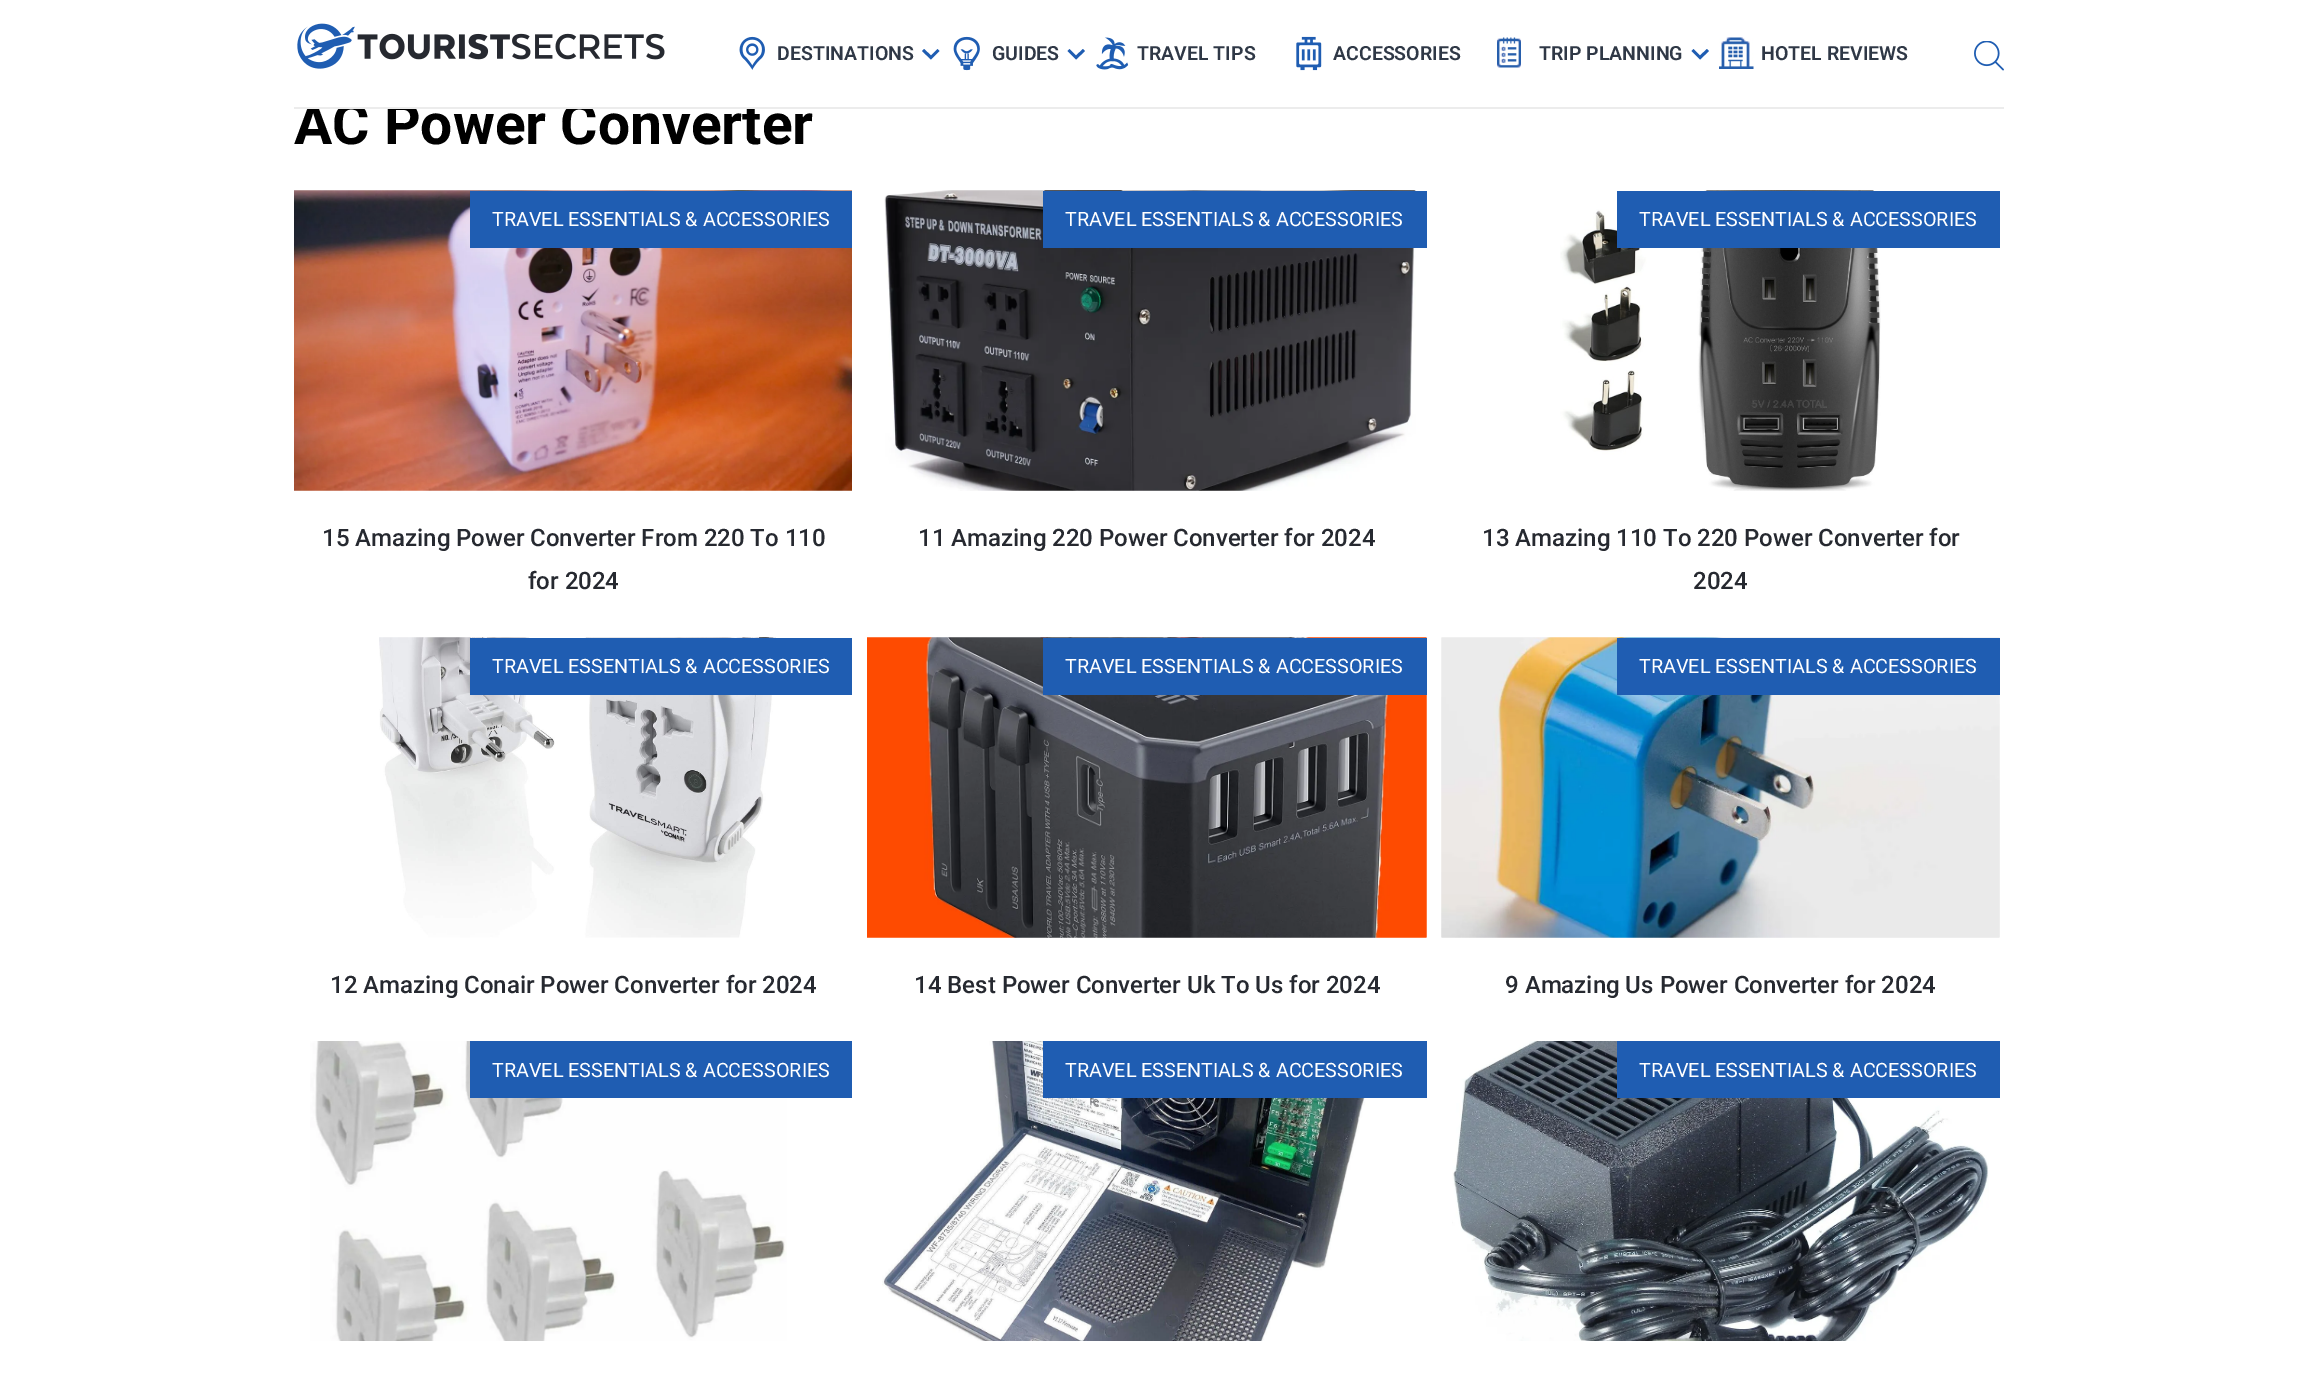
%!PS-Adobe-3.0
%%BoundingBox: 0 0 2298 1390
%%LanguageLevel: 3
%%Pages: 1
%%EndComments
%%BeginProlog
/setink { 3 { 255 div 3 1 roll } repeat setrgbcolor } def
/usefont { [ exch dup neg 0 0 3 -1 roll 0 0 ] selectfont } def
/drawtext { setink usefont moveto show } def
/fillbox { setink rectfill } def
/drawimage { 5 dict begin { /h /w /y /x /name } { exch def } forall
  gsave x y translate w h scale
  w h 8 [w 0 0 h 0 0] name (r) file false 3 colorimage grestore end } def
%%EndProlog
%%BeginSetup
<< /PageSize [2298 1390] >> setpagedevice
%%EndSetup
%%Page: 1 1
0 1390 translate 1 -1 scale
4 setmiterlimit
0 0 2298 1390 255 255 255 fillbox
(AC Power Converter) 294 144 /Roboto-Bold 57 0 0 0 drawtext
308 102 447 5 255 255 255 fillbox
294 107 1710 2 236 236 236 fillbox
(assets/img1.rgb) 297 23 368 46 drawimage
(assets/img2.rgb) 739 36 26 34 drawimage
(DESTINATIONS) 777 60 /Roboto-SemiBold 19.5 47 56 70 drawtext
31 93 178 setink
924 49 moveto 931 55.5 lineto 937.5 49 lineto 939.5 51 lineto 931 59.5 lineto 922 51 lineto closepath fill
(assets/img3.rgb) 953 36 27 35 drawimage
(GUIDES) 992 60 /Roboto-SemiBold 19.5 47 56 70 drawtext
31 93 178 setink
1069.5 49 moveto 1076 55.5 lineto 1083 49 lineto 1085 51 lineto 1076 59.5 lineto 1067.5 51 lineto closepath fill
(assets/img4.rgb) 1096 37 33 33 drawimage
(TRAVEL TIPS) 1137 60 /Roboto-SemiBold 19.5 47 56 70 drawtext
(assets/img5.rgb) 1296 36 26 35 drawimage
(ACCESSORIES) 1333 60 /Roboto-SemiBold 19.5 47 56 70 drawtext
(assets/img6.rgb) 1497 37 24 31 drawimage
(TRIP PLANNING) 1539 60 /Roboto-SemiBold 19.5 47 56 70 drawtext
31 93 178 setink
1693.5 49 moveto 1700 55.5 lineto 1707 49 lineto 1709 51 lineto 1700 59.5 lineto 1691.5 51 lineto closepath fill
(assets/img7.rgb) 1719 37 35 32 drawimage
(HOTEL REVIEWS) 1761 60 /Roboto-SemiBold 19.5 47 56 70 drawtext
(assets/img8.rgb) 1974 41 30 30 drawimage
(assets/img9.rgb) 294 190 558 301 drawimage
(assets/img10.rgb) 294 190 558 301 drawimage
470 191 382 57 31 93 178 fillbox
(TRAVEL ESSENTIALS & ACCESSORIES) 492 226 /Roboto-Regular 19.75 255 255 255 drawtext
(15 Amazing Power Converter From 220 To 110) 322 546 /Roboto-Medium 24 38 41 48 drawtext
(for 2024) 528 589 /Roboto-Medium 24 38 41 48 drawtext
(assets/img11.rgb) 884 190 532 301 drawimage
(assets/img12.rgb) 942 190 474 301 drawimage
1043 191 384 57 31 93 178 fillbox
(TRAVEL ESSENTIALS & ACCESSORIES) 1065 226 /Roboto-Regular 19.75 255 255 255 drawtext
(11 Amazing 220 Power Converter for 2024) 918 546 /Roboto-Medium 24 38 41 48 drawtext
(assets/img13.rgb) 1560 190 321 301 drawimage
(assets/img14.rgb) 1705 190 169 301 drawimage
1617 191 383 57 31 93 178 fillbox
(TRAVEL ESSENTIALS & ACCESSORIES) 1639 226 /Roboto-Regular 19.75 255 255 255 drawtext
(13 Amazing 110 To 220 Power Converter for) 1482 546 /Roboto-Medium 24 38 41 48 drawtext
(2024) 1693 589 /Roboto-Medium 24 38 41 48 drawtext
(assets/img15.rgb) 379 637 397 301 drawimage
(assets/img16.rgb) 379 637 397 1 drawimage
470 638 382 57 31 93 178 fillbox
(TRAVEL ESSENTIALS & ACCESSORIES) 492 673 /Roboto-Regular 19.75 255 255 255 drawtext
(12 Amazing Conair Power Converter for 2024) 330 993 /Roboto-Medium 24 38 41 48 drawtext
(assets/img17.rgb) 867 637 560 301 drawimage
(assets/img18.rgb) 867 637 560 301 drawimage
1043 638 384 57 31 93 178 fillbox
(TRAVEL ESSENTIALS & ACCESSORIES) 1065 673 /Roboto-Regular 19.75 255 255 255 drawtext
(14 Best Power Converter Uk To Us for 2024) 914 993 /Roboto-Medium 24 38 41 48 drawtext
(assets/img19.rgb) 1441 637 559 301 drawimage
(assets/img20.rgb) 1441 637 559 301 drawimage
1617 638 383 57 31 93 178 fillbox
(TRAVEL ESSENTIALS & ACCESSORIES) 1639 673 /Roboto-Regular 19.75 255 255 255 drawtext
(9 Amazing Us Power Converter for 2024) 1505 993 /Roboto-Medium 24 38 41 48 drawtext
(assets/img21.rgb) 310 1041 477 300 drawimage
470 1041 382 57 31 93 178 fillbox
(TRAVEL ESSENTIALS & ACCESSORIES) 492 1077 /Roboto-Regular 19.75 255 255 255 drawtext
(assets/img22.rgb) 882 1041 496 300 drawimage
1043 1041 384 57 31 93 178 fillbox
(TRAVEL ESSENTIALS & ACCESSORIES) 1065 1077 /Roboto-Regular 19.75 255 255 255 drawtext
(assets/img23.rgb) 1452 1041 537 300 drawimage
1617 1041 383 57 31 93 178 fillbox
(TRAVEL ESSENTIALS & ACCESSORIES) 1639 1077 /Roboto-Regular 19.75 255 255 255 drawtext
showpage
%%EOF
